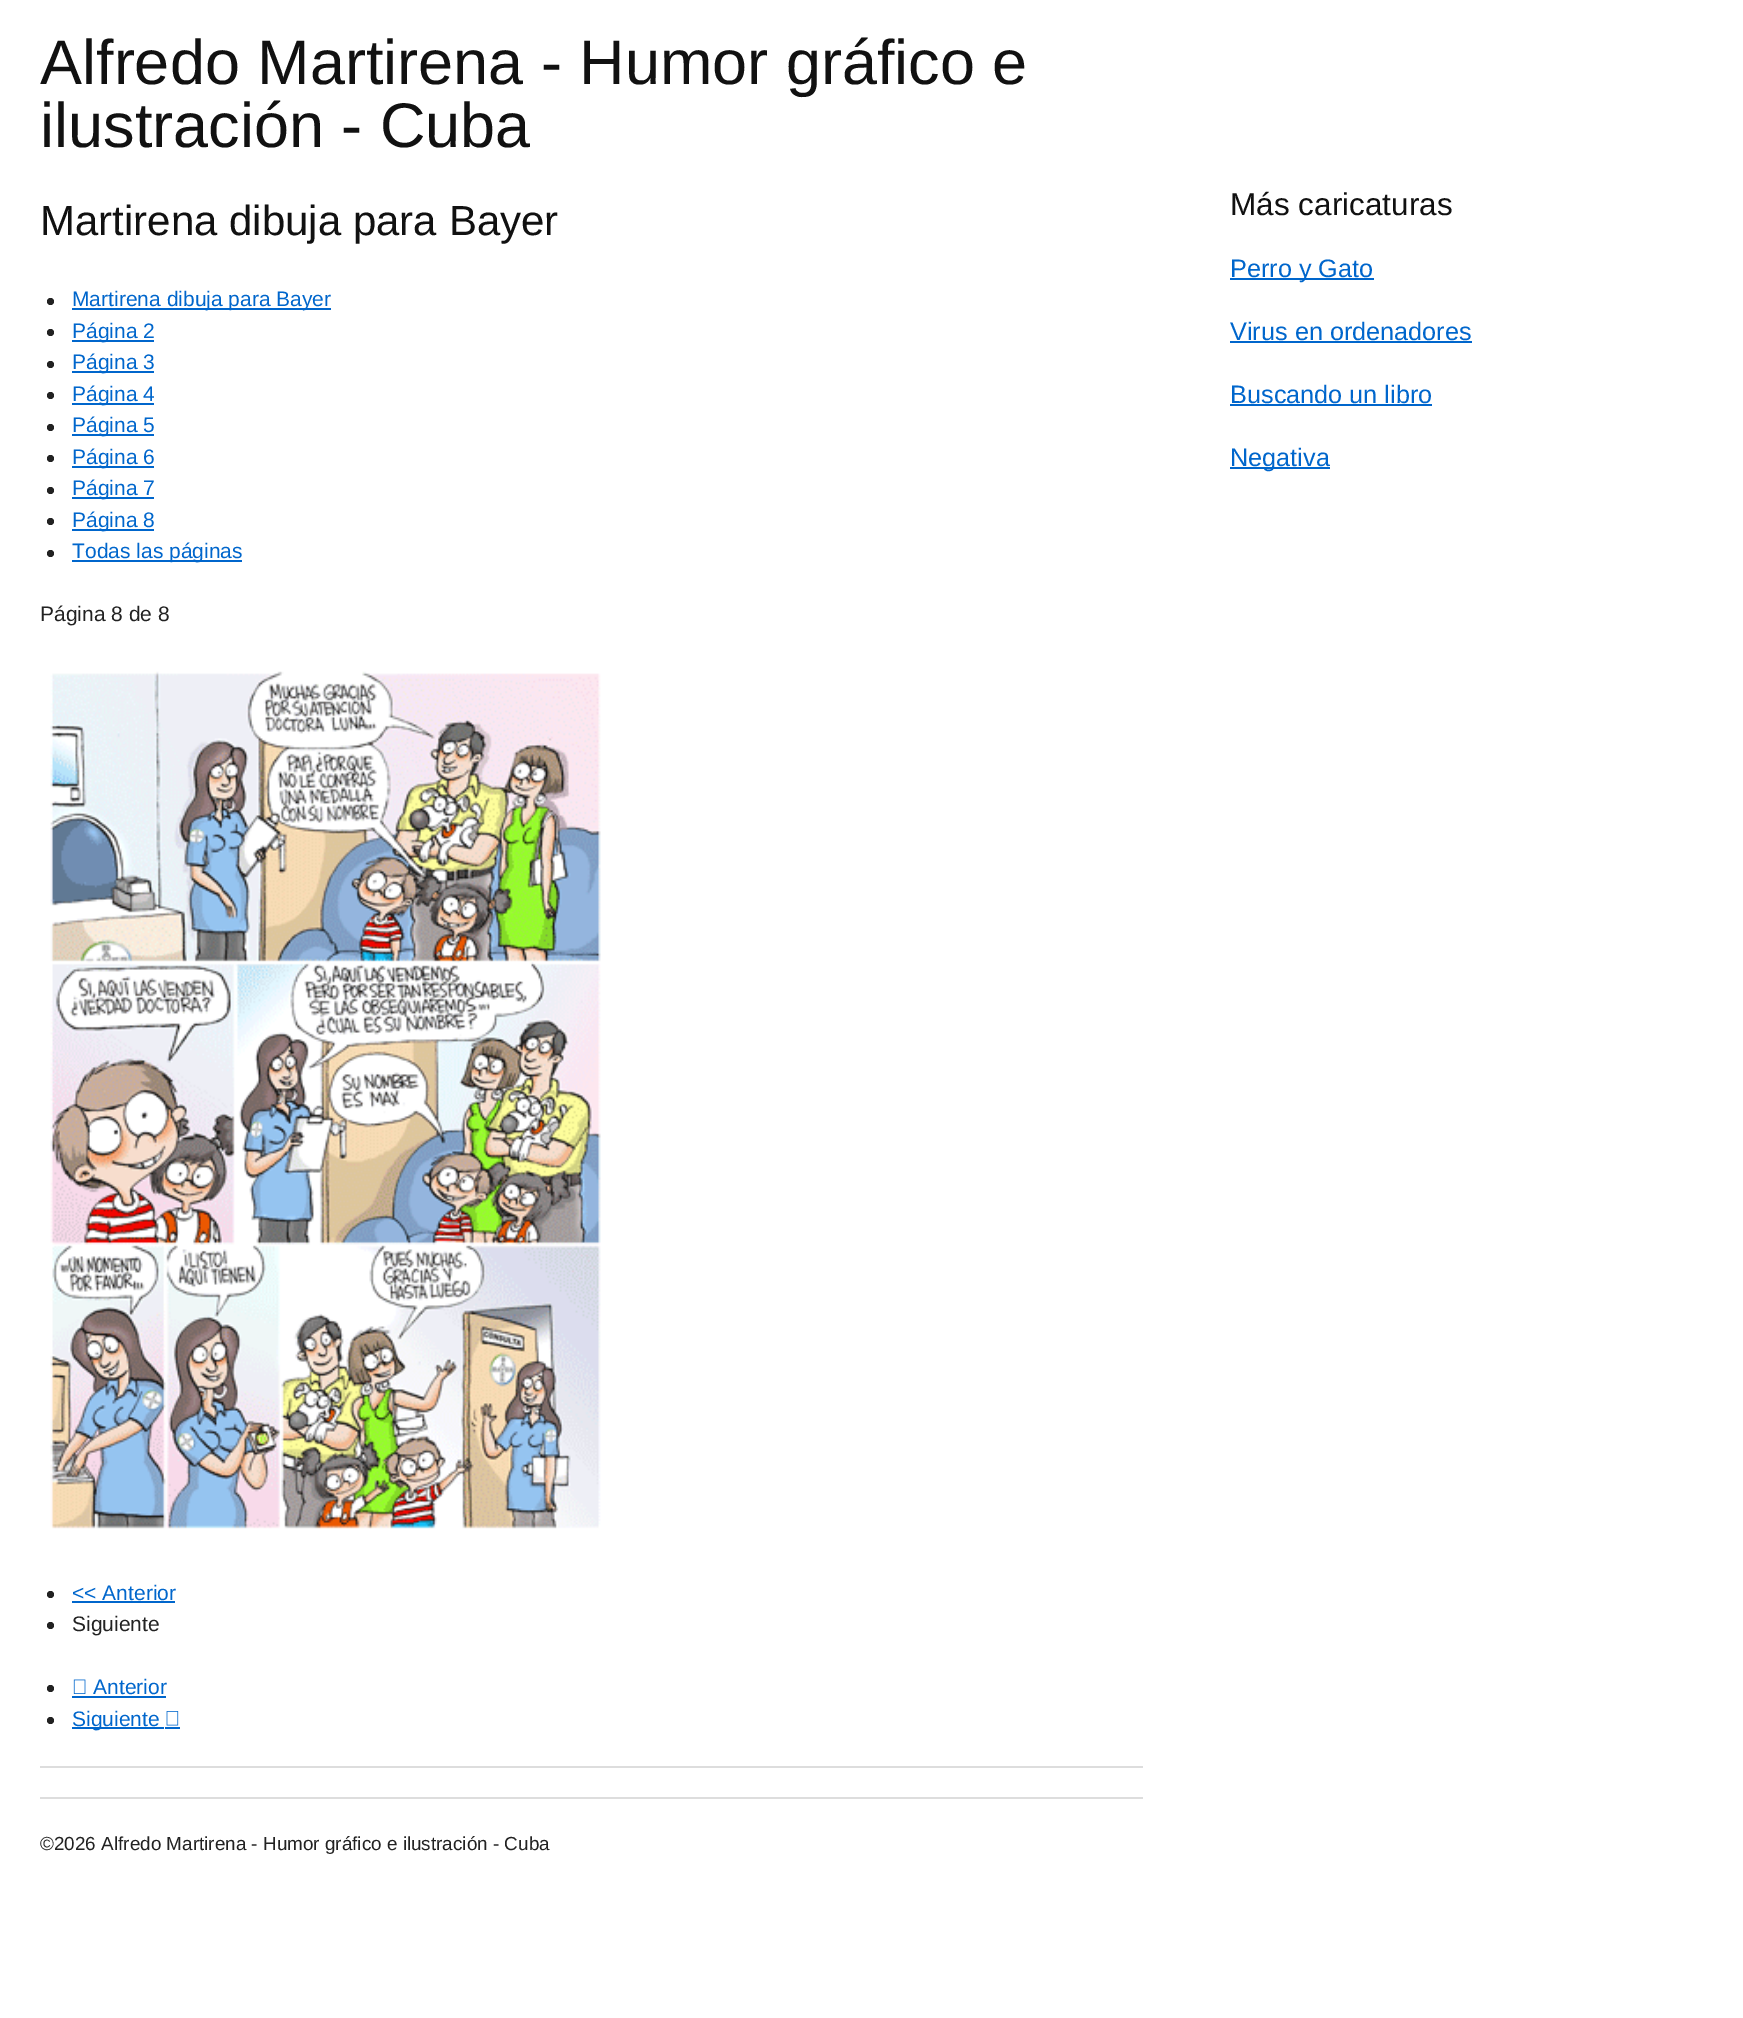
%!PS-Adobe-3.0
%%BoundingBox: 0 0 1743 2018
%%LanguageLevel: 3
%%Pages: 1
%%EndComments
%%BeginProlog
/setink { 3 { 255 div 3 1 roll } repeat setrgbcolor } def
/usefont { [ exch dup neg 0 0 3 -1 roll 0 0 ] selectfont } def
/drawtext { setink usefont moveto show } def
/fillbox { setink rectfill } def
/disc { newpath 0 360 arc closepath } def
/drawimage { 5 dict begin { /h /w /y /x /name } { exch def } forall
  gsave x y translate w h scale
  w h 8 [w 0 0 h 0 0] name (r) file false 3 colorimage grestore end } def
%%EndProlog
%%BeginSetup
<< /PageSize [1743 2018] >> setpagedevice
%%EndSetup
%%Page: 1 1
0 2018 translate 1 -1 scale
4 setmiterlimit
0 0 1743 2018 255 255 255 fillbox
(Alfredo Martirena - Humor gráfico e) 40 84 /LiberationSans-Regular 63 17 17 17 drawtext
(ilustración - Cuba) 40 147 /LiberationSans-Regular 63 17 17 17 drawtext
(Martirena dibuja para Bayer) 40 235 /LiberationSans-Regular 42 17 17 17 drawtext
34 34 34 setink
50.5 301.5 3.5 disc fill
72 308 259 2 0 102 204 fillbox
(Martirena dibuja para Bayer) 72 306 /LiberationSans-Regular 21 0 102 204 drawtext
34 34 34 setink
50.5 332.5 3.5 disc fill
72 340 82 2 0 102 204 fillbox
(Página 2) 72 338 /LiberationSans-Regular 21 0 102 204 drawtext
34 34 34 setink
50.5 364.5 3.5 disc fill
72 371 82 2 0 102 204 fillbox
(Página 3) 72 369 /LiberationSans-Regular 21 0 102 204 drawtext
34 34 34 setink
50.5 395.5 3.5 disc fill
72 403 82 2 0 102 204 fillbox
(Página 4) 72 401 /LiberationSans-Regular 21 0 102 204 drawtext
34 34 34 setink
50.5 427.5 3.5 disc fill
72 434 82 2 0 102 204 fillbox
(Página 5) 72 432 /LiberationSans-Regular 21 0 102 204 drawtext
34 34 34 setink
50.5 458.5 3.5 disc fill
72 466 82 2 0 102 204 fillbox
(Página 6) 72 464 /LiberationSans-Regular 21 0 102 204 drawtext
34 34 34 setink
50.5 490.5 3.5 disc fill
72 497 82 2 0 102 204 fillbox
(Página 7) 72 495 /LiberationSans-Regular 21 0 102 204 drawtext
34 34 34 setink
50.5 521.5 3.5 disc fill
72 529 82 2 0 102 204 fillbox
(Página 8) 72 527 /LiberationSans-Regular 21 0 102 204 drawtext
34 34 34 setink
50.5 553.5 3.5 disc fill
72 560 170 2 0 102 204 fillbox
(Todas las páginas) 72 558 /LiberationSans-Regular 21 0 102 204 drawtext
(Página 8 de 8) 40 621 /LiberationSans-Regular 21 34 34 34 drawtext
(assets/img1.rgb) 50 671 551 858 drawimage
50.5 1594.5 3.5 disc fill
(<< Anterior) 72 1600 /LiberationSans-Regular 21 0 102 204 drawtext
72 1601 103 2 0 102 204 fillbox
34 34 34 setink
50.5 1625.5 3.5 disc fill
(Siguiente) 72 1631 /LiberationSans-Regular 21 34 34 34 drawtext
50.5 1688.5 3.5 disc fill
(assets/img2.rgb) 73 1679 13 15 drawimage
(Anterior) 93 1694 /LiberationSans-Regular 21 0 102 204 drawtext
72 1696 94 2 0 102 204 fillbox
34 34 34 setink
50.5 1720.5 3.5 disc fill
72 1727 92 2 0 102 204 fillbox
(Siguiente) 72 1726 /LiberationSans-Regular 21 0 102 204 drawtext
165 1727 15 2 0 102 204 fillbox
(assets/img3.rgb) 166 1711 13 15 drawimage
40 1766 1103 2 221 221 221 fillbox
(Más caricaturas) 1230 215 /LiberationSans-Regular 31.5 17 17 17 drawtext
1230 278 144 2 0 102 204 fillbox
(Perro y Gato) 1230 277 /LiberationSans-Regular 25.25 0 102 204 drawtext
(Virus en ordenadores) 1230 340 /LiberationSans-Regular 25.25 0 102 204 drawtext
1230 341 242 2 0 102 204 fillbox
(Buscando un libro) 1230 403 /LiberationSans-Regular 25.25 0 102 204 drawtext
1230 404 202 2 0 102 204 fillbox
1230 467 100 2 0 102 204 fillbox
(Negativa) 1230 466 /LiberationSans-Regular 25.25 0 102 204 drawtext
40 1797 1103 2 221 221 221 fillbox
(©2026 Alfredo Martirena - Humor gráfico e ilustración - Cuba) 40 1850 /LiberationSans-Regular 18.9 34 34 34 drawtext
showpage
%%EOF
